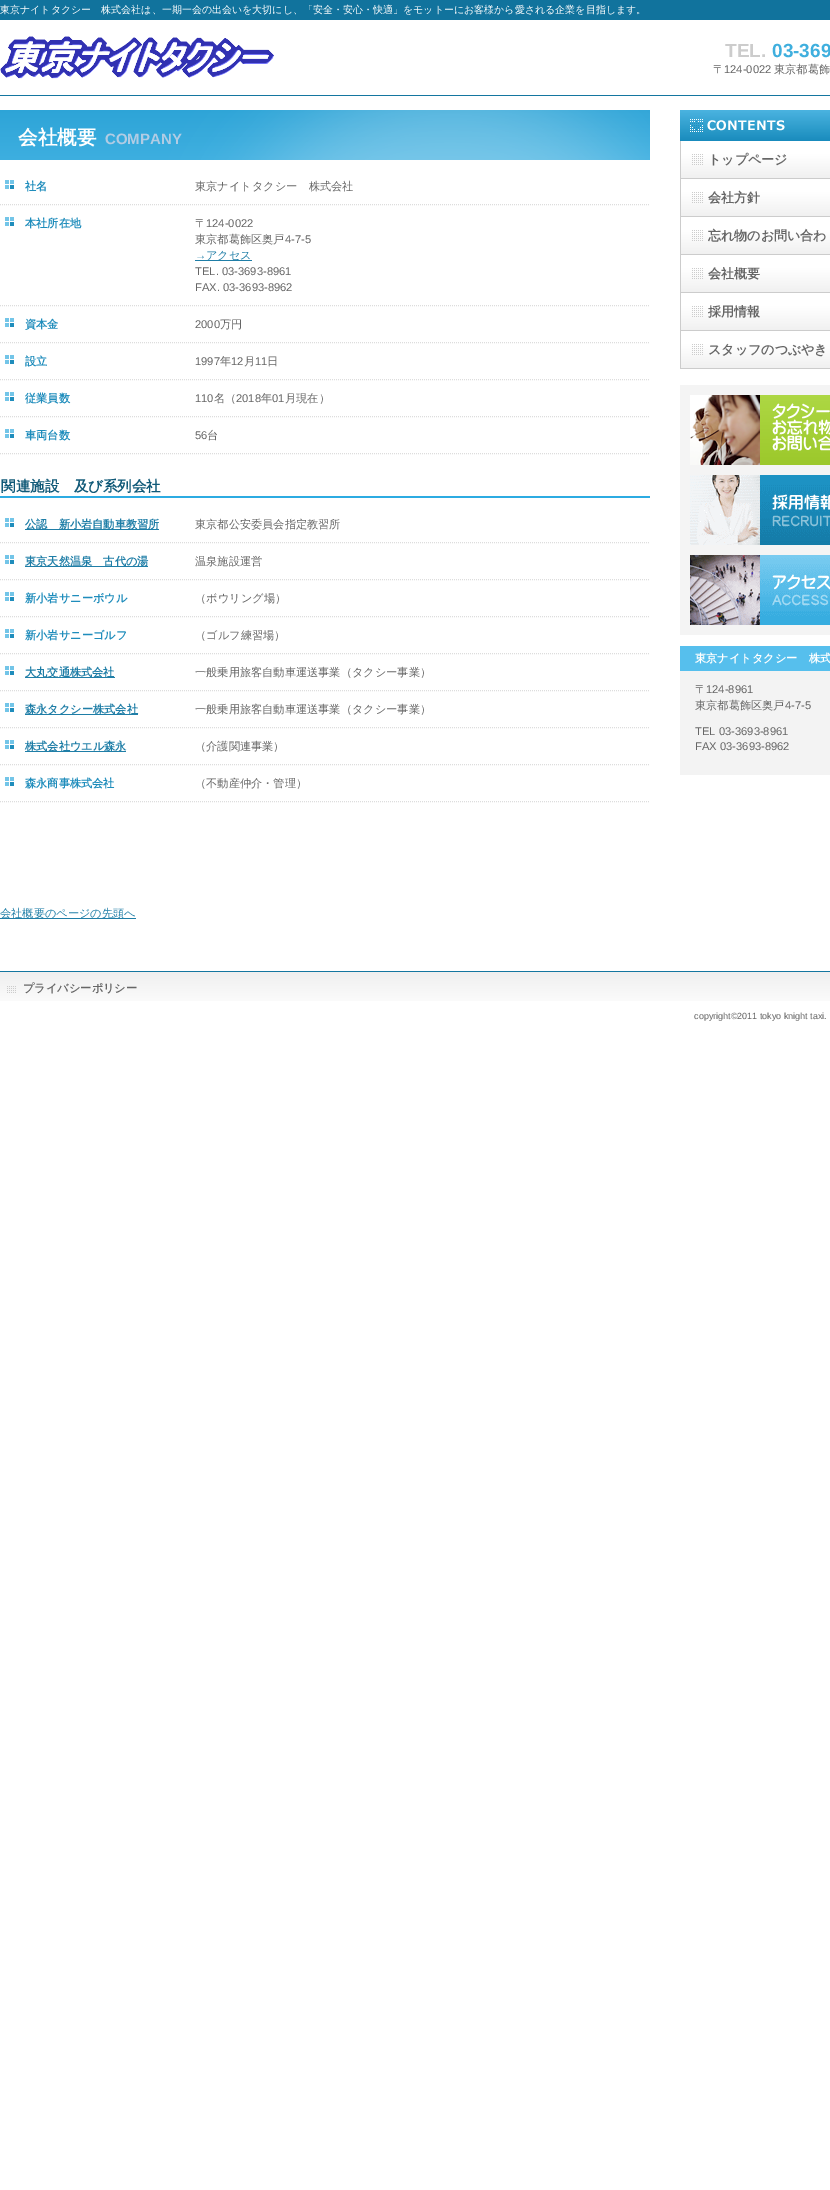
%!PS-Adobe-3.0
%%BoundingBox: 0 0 830 2190
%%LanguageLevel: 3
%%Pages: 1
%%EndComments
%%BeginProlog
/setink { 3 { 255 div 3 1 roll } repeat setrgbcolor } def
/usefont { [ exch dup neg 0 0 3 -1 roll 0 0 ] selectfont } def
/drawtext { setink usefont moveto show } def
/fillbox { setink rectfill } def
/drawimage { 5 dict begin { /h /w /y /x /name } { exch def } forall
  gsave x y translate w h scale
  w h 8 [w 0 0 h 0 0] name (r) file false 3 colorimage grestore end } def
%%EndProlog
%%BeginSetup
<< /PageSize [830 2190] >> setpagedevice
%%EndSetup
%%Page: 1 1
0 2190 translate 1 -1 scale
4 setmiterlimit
0 0 830 2190 255 255 255 fillbox
(assets/img1.rgb) 0 0 830 96 drawimage
(assets/img2.rgb) 0 971 830 30 drawimage
(東京ナイトタクシー　株式会社は、一期一会の出会いを大切にし、「安全・安心・快適」をモットーにお客様から愛される企業を目指します。) 0 13 /WenQuanYiZenHei-Medium 10 255 255 255 drawtext
(assets/img3.rgb) 0 36 274 43 drawimage
(TEL.) 725 57 /LiberationSans-Bold 19 204 204 204 drawtext
(03-369) 772 57 /LiberationSans-Bold 19 63 175 222 drawtext
(〒) 713 73 /WenQuanYiZenHei-Medium 11.2 102 102 102 drawtext
(124-0022) 724 73 /LiberationSans-Regular 11.2 102 102 102 drawtext
(東京都葛飾) 774 73 /WenQuanYiZenHei-Medium 11.2 102 102 102 drawtext
(assets/img4.rgb) 0 110 650 50 drawimage
(会社概要) 18 144 /WenQuanYiZenHei-Bold 19.5 255 255 255 drawtext
(COMPANY) 105 144 /LiberationSans-Bold 15 177 204 228 drawtext
(assets/img5.rgb) 5 180 9 9 drawimage
(社名) 25 190 /WenQuanYiZenHei-Bold 11.2 31 141 188 drawtext
221 221 221 setink
[1 1] 0 setdash
0 204.5 moveto 650 204.5 lineto stroke
(東京ナイトタクシー　株式会社) 195 190 /WenQuanYiZenHei-Medium 11.2 102 102 102 drawtext
(assets/img5.rgb) 5 217 9 9 drawimage
(本社所在地) 25 227 /WenQuanYiZenHei-Bold 11.2 31 141 188 drawtext
221 221 221 setink
0 305.5 moveto 650 305.5 lineto stroke
(〒) 195 227 /WenQuanYiZenHei-Medium 11.2 102 102 102 drawtext
(124-0022) 206 227 /LiberationSans-Regular 11.2 102 102 102 drawtext
(東京都葛飾区奥戸) 195 243 /WenQuanYiZenHei-Medium 11.2 102 102 102 drawtext
(4-7-5) 285 243 /LiberationSans-Regular 11.2 102 102 102 drawtext
(→) 195 259 /LiberationSans-Regular 11.2 31 126 167 drawtext
195 260 57 1 31 126 167 fillbox
(アクセス) 206 259 /WenQuanYiZenHei-Medium 11.2 31 126 167 drawtext
(TEL. 03-3693-8961) 195 275 /LiberationSans-Regular 11.2 102 102 102 drawtext
(FAX. 03-3693-8962) 195 291 /LiberationSans-Regular 11.2 102 102 102 drawtext
(assets/img5.rgb) 5 318 9 9 drawimage
(資本金) 25 328 /WenQuanYiZenHei-Bold 11.2 31 141 188 drawtext
221 221 221 setink
0 342.5 moveto 650 342.5 lineto stroke
(2000) 195 328 /LiberationSans-Regular 11.2 102 102 102 drawtext
(万円) 220 328 /WenQuanYiZenHei-Medium 11.2 102 102 102 drawtext
(assets/img5.rgb) 5 355 9 9 drawimage
(設立) 25 365 /WenQuanYiZenHei-Bold 11.2 31 141 188 drawtext
221 221 221 setink
0 379.5 moveto 650 379.5 lineto stroke
(1997) 195 365 /LiberationSans-Regular 11.2 102 102 102 drawtext
(年) 220 365 /WenQuanYiZenHei-Medium 11.2 102 102 102 drawtext
(12) 231 365 /LiberationSans-Regular 11.2 102 102 102 drawtext
(月) 244 365 /WenQuanYiZenHei-Medium 11.2 102 102 102 drawtext
(11) 255 365 /LiberationSans-Regular 11.2 102 102 102 drawtext
(日) 267 365 /WenQuanYiZenHei-Medium 11.2 102 102 102 drawtext
(assets/img5.rgb) 5 392 9 9 drawimage
(従業員数) 25 402 /WenQuanYiZenHei-Bold 11.2 31 141 188 drawtext
221 221 221 setink
0 416.5 moveto 650 416.5 lineto stroke
(110) 195 402 /LiberationSans-Regular 11.2 102 102 102 drawtext
(名（) 214 402 /WenQuanYiZenHei-Medium 11.2 102 102 102 drawtext
(2018) 236 402 /LiberationSans-Regular 11.2 102 102 102 drawtext
(年) 261 402 /WenQuanYiZenHei-Medium 11.2 102 102 102 drawtext
(01) 272 402 /LiberationSans-Regular 11.2 102 102 102 drawtext
(月現在）) 285 402 /WenQuanYiZenHei-Medium 11.2 102 102 102 drawtext
(assets/img5.rgb) 5 429 9 9 drawimage
(車両台数) 25 439 /WenQuanYiZenHei-Bold 11.2 31 141 188 drawtext
221 221 221 setink
0 453.5 moveto 650 453.5 lineto stroke
(56) 195 439 /LiberationSans-Regular 11.2 102 102 102 drawtext
(台) 207 439 /WenQuanYiZenHei-Medium 11.2 102 102 102 drawtext
0 496 650 2 44 171 226 fillbox
(関連施設　及び系列会社) 1 491 /WenQuanYiZenHei-Bold 14.5 16 89 120 drawtext
(assets/img5.rgb) 5 518 9 9 drawimage
25 529 134 1 31 126 167 fillbox
(公認　新小岩自動車教習所) 25 528 /WenQuanYiZenHei-Bold 11.2 31 126 167 drawtext
221 221 221 setink
0 542.5 moveto 650 542.5 lineto stroke
(東京都公安委員会指定教習所) 195 528 /WenQuanYiZenHei-Medium 11.2 102 102 102 drawtext
(assets/img5.rgb) 5 555 9 9 drawimage
25 566 123 1 31 126 167 fillbox
(東京天然温泉　古代の湯) 25 565 /WenQuanYiZenHei-Bold 11.2 31 126 167 drawtext
221 221 221 setink
0 579.5 moveto 650 579.5 lineto stroke
(温泉施設運営) 195 565 /WenQuanYiZenHei-Medium 11.2 102 102 102 drawtext
(assets/img5.rgb) 5 592 9 9 drawimage
(新小岩サニーボウル) 25 602 /WenQuanYiZenHei-Bold 11.2 31 141 188 drawtext
221 221 221 setink
0 616.5 moveto 650 616.5 lineto stroke
(（ボウリング場）) 195 602 /WenQuanYiZenHei-Medium 11.2 102 102 102 drawtext
(assets/img5.rgb) 5 629 9 9 drawimage
(新小岩サニーゴルフ) 25 639 /WenQuanYiZenHei-Bold 11.2 31 141 188 drawtext
221 221 221 setink
0 653.5 moveto 650 653.5 lineto stroke
(（ゴルフ練習場）) 195 639 /WenQuanYiZenHei-Medium 11.2 102 102 102 drawtext
(assets/img5.rgb) 5 666 9 9 drawimage
25 677 90 1 31 126 167 fillbox
(大丸交通株式会社) 25 676 /WenQuanYiZenHei-Bold 11.2 31 126 167 drawtext
221 221 221 setink
0 690.5 moveto 650 690.5 lineto stroke
(一般乗用旅客自動車運送事業（タクシー事業）) 195 676 /WenQuanYiZenHei-Medium 11.2 102 102 102 drawtext
(assets/img5.rgb) 5 703 9 9 drawimage
25 714 113 1 31 126 167 fillbox
(森永タクシー株式会社) 25 713 /WenQuanYiZenHei-Bold 11.2 31 126 167 drawtext
221 221 221 setink
0 727.5 moveto 650 727.5 lineto stroke
(一般乗用旅客自動車運送事業（タクシー事業）) 195 713 /WenQuanYiZenHei-Medium 11.2 102 102 102 drawtext
(assets/img5.rgb) 5 740 9 9 drawimage
25 751 101 1 31 126 167 fillbox
(株式会社ウエル森永) 25 750 /WenQuanYiZenHei-Bold 11.2 31 126 167 drawtext
221 221 221 setink
0 764.5 moveto 650 764.5 lineto stroke
(（介護関連事業）) 195 750 /WenQuanYiZenHei-Medium 11.2 102 102 102 drawtext
(assets/img5.rgb) 5 777 9 9 drawimage
(森永商事株式会社) 25 787 /WenQuanYiZenHei-Bold 11.2 31 141 188 drawtext
221 221 221 setink
0 801.5 moveto 650 801.5 lineto stroke
(（不動産仲介・管理）) 195 787 /WenQuanYiZenHei-Medium 11.2 102 102 102 drawtext
0 918 136 1 31 126 167 fillbox
(会社概要のページの先頭へ) 0 917 /WenQuanYiZenHei-Medium 11.2 31 126 167 drawtext
(assets/img6.rgb) 680 110 150 31 drawimage
680 178 150 1 204 204 204 fillbox
680 141 1 38 204 204 204 fillbox
(assets/img7.rgb) 681 154 149 24 drawimage
(トップページ) 708 164 /WenQuanYiZenHei-Bold 13 102 102 102 drawtext
680 216 150 1 204 204 204 fillbox
680 179 1 38 204 204 204 fillbox
(assets/img7.rgb) 681 192 149 24 drawimage
(会社方針) 708 202 /WenQuanYiZenHei-Bold 13 102 102 102 drawtext
680 254 150 1 204 204 204 fillbox
680 217 1 38 204 204 204 fillbox
(assets/img7.rgb) 681 230 149 24 drawimage
(忘れ物のお問い合わ) 708 240 /WenQuanYiZenHei-Bold 13 102 102 102 drawtext
680 292 150 1 204 204 204 fillbox
680 255 1 38 204 204 204 fillbox
(assets/img7.rgb) 681 268 149 24 drawimage
(会社概要) 708 278 /WenQuanYiZenHei-Bold 13 102 102 102 drawtext
680 330 150 1 204 204 204 fillbox
680 293 1 38 204 204 204 fillbox
(assets/img7.rgb) 681 306 149 24 drawimage
(採用情報) 708 316 /WenQuanYiZenHei-Bold 13 102 102 102 drawtext
680 368 150 1 204 204 204 fillbox
680 331 1 38 204 204 204 fillbox
(assets/img7.rgb) 681 344 149 24 drawimage
(スタッフのつぶやき) 708 354 /WenQuanYiZenHei-Bold 13 102 102 102 drawtext
680 385 150 250 244 244 244 fillbox
(assets/img8.rgb) 690 395 140 70 drawimage
(assets/img9.rgb) 690 475 140 70 drawimage
(assets/img10.rgb) 690 555 140 70 drawimage
680 671 150 104 243 243 243 fillbox
680 646 150 25 86 191 237 fillbox
(東京ナイトタクシー　株式) 695 662 /WenQuanYiZenHei-Bold 11.2 255 255 255 drawtext
(〒) 695 693 /WenQuanYiZenHei-Medium 11.2 102 102 102 drawtext
(124-8961) 706 693 /LiberationSans-Regular 11.2 102 102 102 drawtext
(東京都葛飾区奥戸) 695 709 /WenQuanYiZenHei-Medium 11.2 102 102 102 drawtext
(4-7-5) 785 709 /LiberationSans-Regular 11.2 102 102 102 drawtext
(TEL 03-3693-8961) 695 735 /LiberationSans-Regular 11.2 102 102 102 drawtext
(FAX 03-3693-8962) 695 750 /LiberationSans-Regular 11.2 102 102 102 drawtext
(assets/img11.rgb) 7 986 9 7 drawimage
(プライバシーポリシー) 23 992 /WenQuanYiZenHei-Bold 11.2 102 102 102 drawtext
(copyright©2011 tokyo knight taxi.) 694 1019 /LiberationSans-Regular 9 102 102 102 drawtext
showpage
%%EOF
